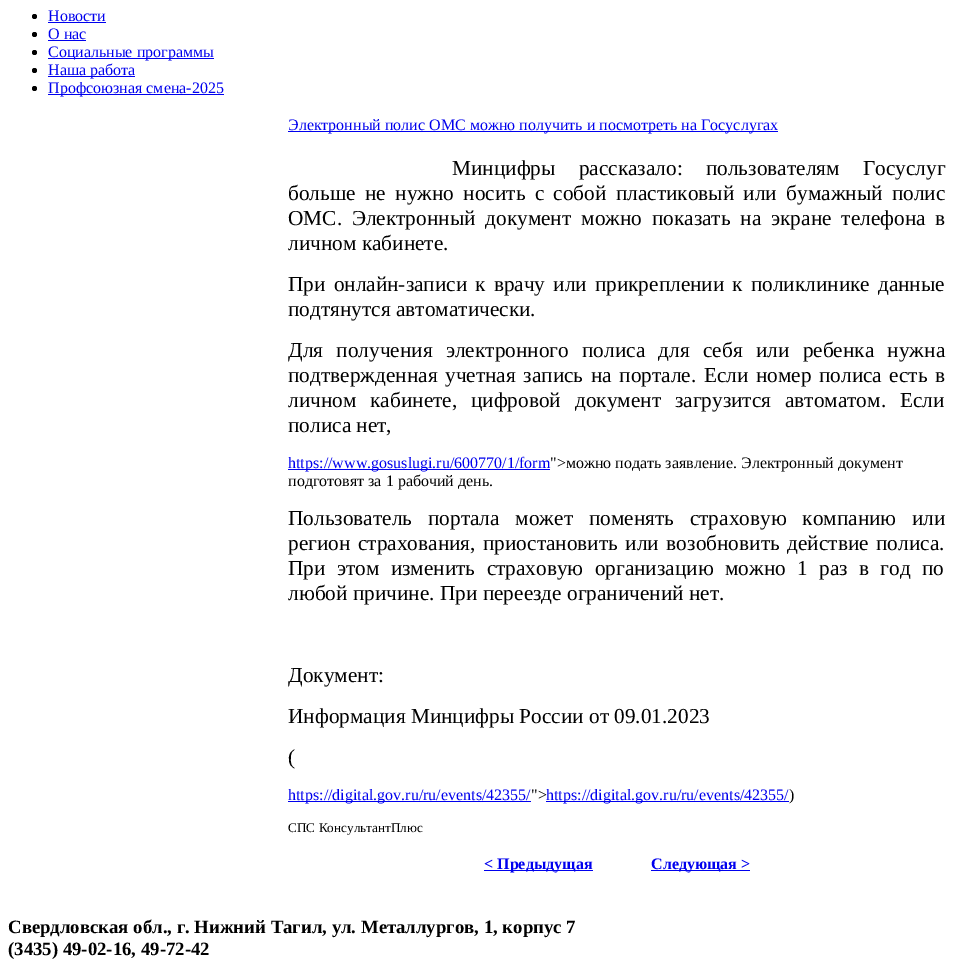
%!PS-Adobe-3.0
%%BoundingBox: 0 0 957 966
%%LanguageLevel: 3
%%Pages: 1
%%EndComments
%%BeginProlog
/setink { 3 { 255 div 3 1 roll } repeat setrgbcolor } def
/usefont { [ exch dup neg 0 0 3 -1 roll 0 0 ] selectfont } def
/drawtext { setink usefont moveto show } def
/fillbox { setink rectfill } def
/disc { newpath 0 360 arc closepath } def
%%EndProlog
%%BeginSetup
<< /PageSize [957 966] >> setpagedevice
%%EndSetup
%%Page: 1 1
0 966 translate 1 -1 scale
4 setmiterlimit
0 0 957 966 255 255 255 fillbox
0 0 0 setink
34.5 16.5 2.5 disc fill
(Новости) 48 21 /LiberationSerif-Regular 16 0 0 238 drawtext
48 22 58 1 0 0 238 fillbox
0 0 0 setink
34.5 34.5 2.5 disc fill
(О нас) 48 39 /LiberationSerif-Regular 16 0 0 238 drawtext
48 40 38 1 0 0 238 fillbox
0 0 0 setink
34.5 52.5 2.5 disc fill
48 58 166 1 0 0 238 fillbox
(Социальные программы) 48 57 /LiberationSerif-Regular 16 0 0 238 drawtext
0 0 0 setink
34.5 70.5 2.5 disc fill
48 76 87 1 0 0 238 fillbox
(Наша работа) 48 75 /LiberationSerif-Regular 16 0 0 238 drawtext
0 0 0 setink
34.5 88.5 2.5 disc fill
48 94 176 1 0 0 238 fillbox
(Профсоюзная смена-2025) 48 93 /LiberationSerif-Regular 16 0 0 238 drawtext
288 131 490 1 0 0 238 fillbox
(Электронный полис ОМС можно получить и посмотреть на Госуслугах) 288 130 /LiberationSerif-Regular 16 0 0 238 drawtext
/LiberationSerif-Regular 21.3 usefont
0 0 0 setink
452 175 moveto 18 0 32 (Минцифры рассказало: пользователям Госуслуг) widthshow
288 200 moveto 4 0 32 (больше не нужно носить с собой пластиковый или бумажный полис) widthshow
288 225 moveto 4.5 0 32 (ОМС. Электронный документ можно показать на экране телефона в) widthshow
(личном кабинете.) 288 250 /LiberationSerif-Regular 21.3 0 0 0 drawtext
288 291 moveto 2.75 0 32 (При онлайн-записи к врачу или прикреплении к поликлинике данные) widthshow
(подтянутся автоматически.) 288 316 /LiberationSerif-Regular 21.3 0 0 0 drawtext
288 357 moveto 8 0 32 (Для получения электронного полиса для себя или ребенка нужна) widthshow
288 382 moveto 2.25 0 32 (подтвержденная учетная запись на портале. Если номер полиса есть в) widthshow
288 407 moveto 8.5 0 32 (личном кабинете, цифровой документ загрузится автоматом. Если) widthshow
(полиса нет,) 288 432 /LiberationSerif-Regular 21.3 0 0 0 drawtext
288 469 262 1 0 0 238 fillbox
(https://www.gosuslugi.ru/600770/1/form) 288 468 /LiberationSerif-Regular 16 0 0 238 drawtext
(">можно подать заявление. Электронный документ) 550 468 /LiberationSerif-Regular 16 0 0 0 drawtext
(подготовят за 1 рабочий день.) 288 486 /LiberationSerif-Regular 16 0 0 0 drawtext
/LiberationSerif-Regular 21.3 usefont
288 525 moveto 10.5 0 32 (Пользователь портала может поменять страховую компанию или) widthshow
288 550 moveto 2.25 0 32 (регион страхования, приостановить или возобновить действие полиса.) widthshow
288 575 moveto 6 0 32 (При этом изменить страховую организацию можно 1 раз в год по) widthshow
(любой причине. При переезде ограничений нет.) 288 600 /LiberationSerif-Regular 21.3 0 0 0 drawtext
(Документ:) 288 682 /LiberationSerif-Regular 21.3 0 0 0 drawtext
(Информация Минцифры России от 09.01.2023) 288 723 /LiberationSerif-Regular 21.3 0 0 0 drawtext
(\() 288 764 /LiberationSerif-Regular 21.3 0 0 0 drawtext
288 801 243 1 0 0 238 fillbox
(https://digital.gov.ru/ru/events/42355/) 288 800 /LiberationSerif-Regular 16 0 0 238 drawtext
(">) 531 800 /LiberationSerif-Regular 16 0 0 0 drawtext
546 801 243 1 0 0 238 fillbox
(https://digital.gov.ru/ru/events/42355/) 546 800 /LiberationSerif-Regular 16 0 0 238 drawtext
(\)) 789 800 /LiberationSerif-Regular 16 0 0 0 drawtext
(СПС КонсультантПлюс) 288 832 /LiberationSerif-Regular 13.25 0 0 0 drawtext
484 870 109 1 0 0 238 fillbox
(< Предыдущая) 484 869 /LiberationSerif-Bold 16 0 0 238 drawtext
651 870 99 1 0 0 238 fillbox
(Следующая >) 651 869 /LiberationSerif-Bold 16 0 0 238 drawtext
(Свердловская обл., г. Нижний Тагил, ул. Металлургов, 1, корпус 7) 8 933 /LiberationSerif-Bold 18.75 0 0 0 drawtext
(\(3435\) 49-02-16, 49-72-42) 8 955 /LiberationSerif-Bold 18.75 0 0 0 drawtext
showpage
%%EOF
